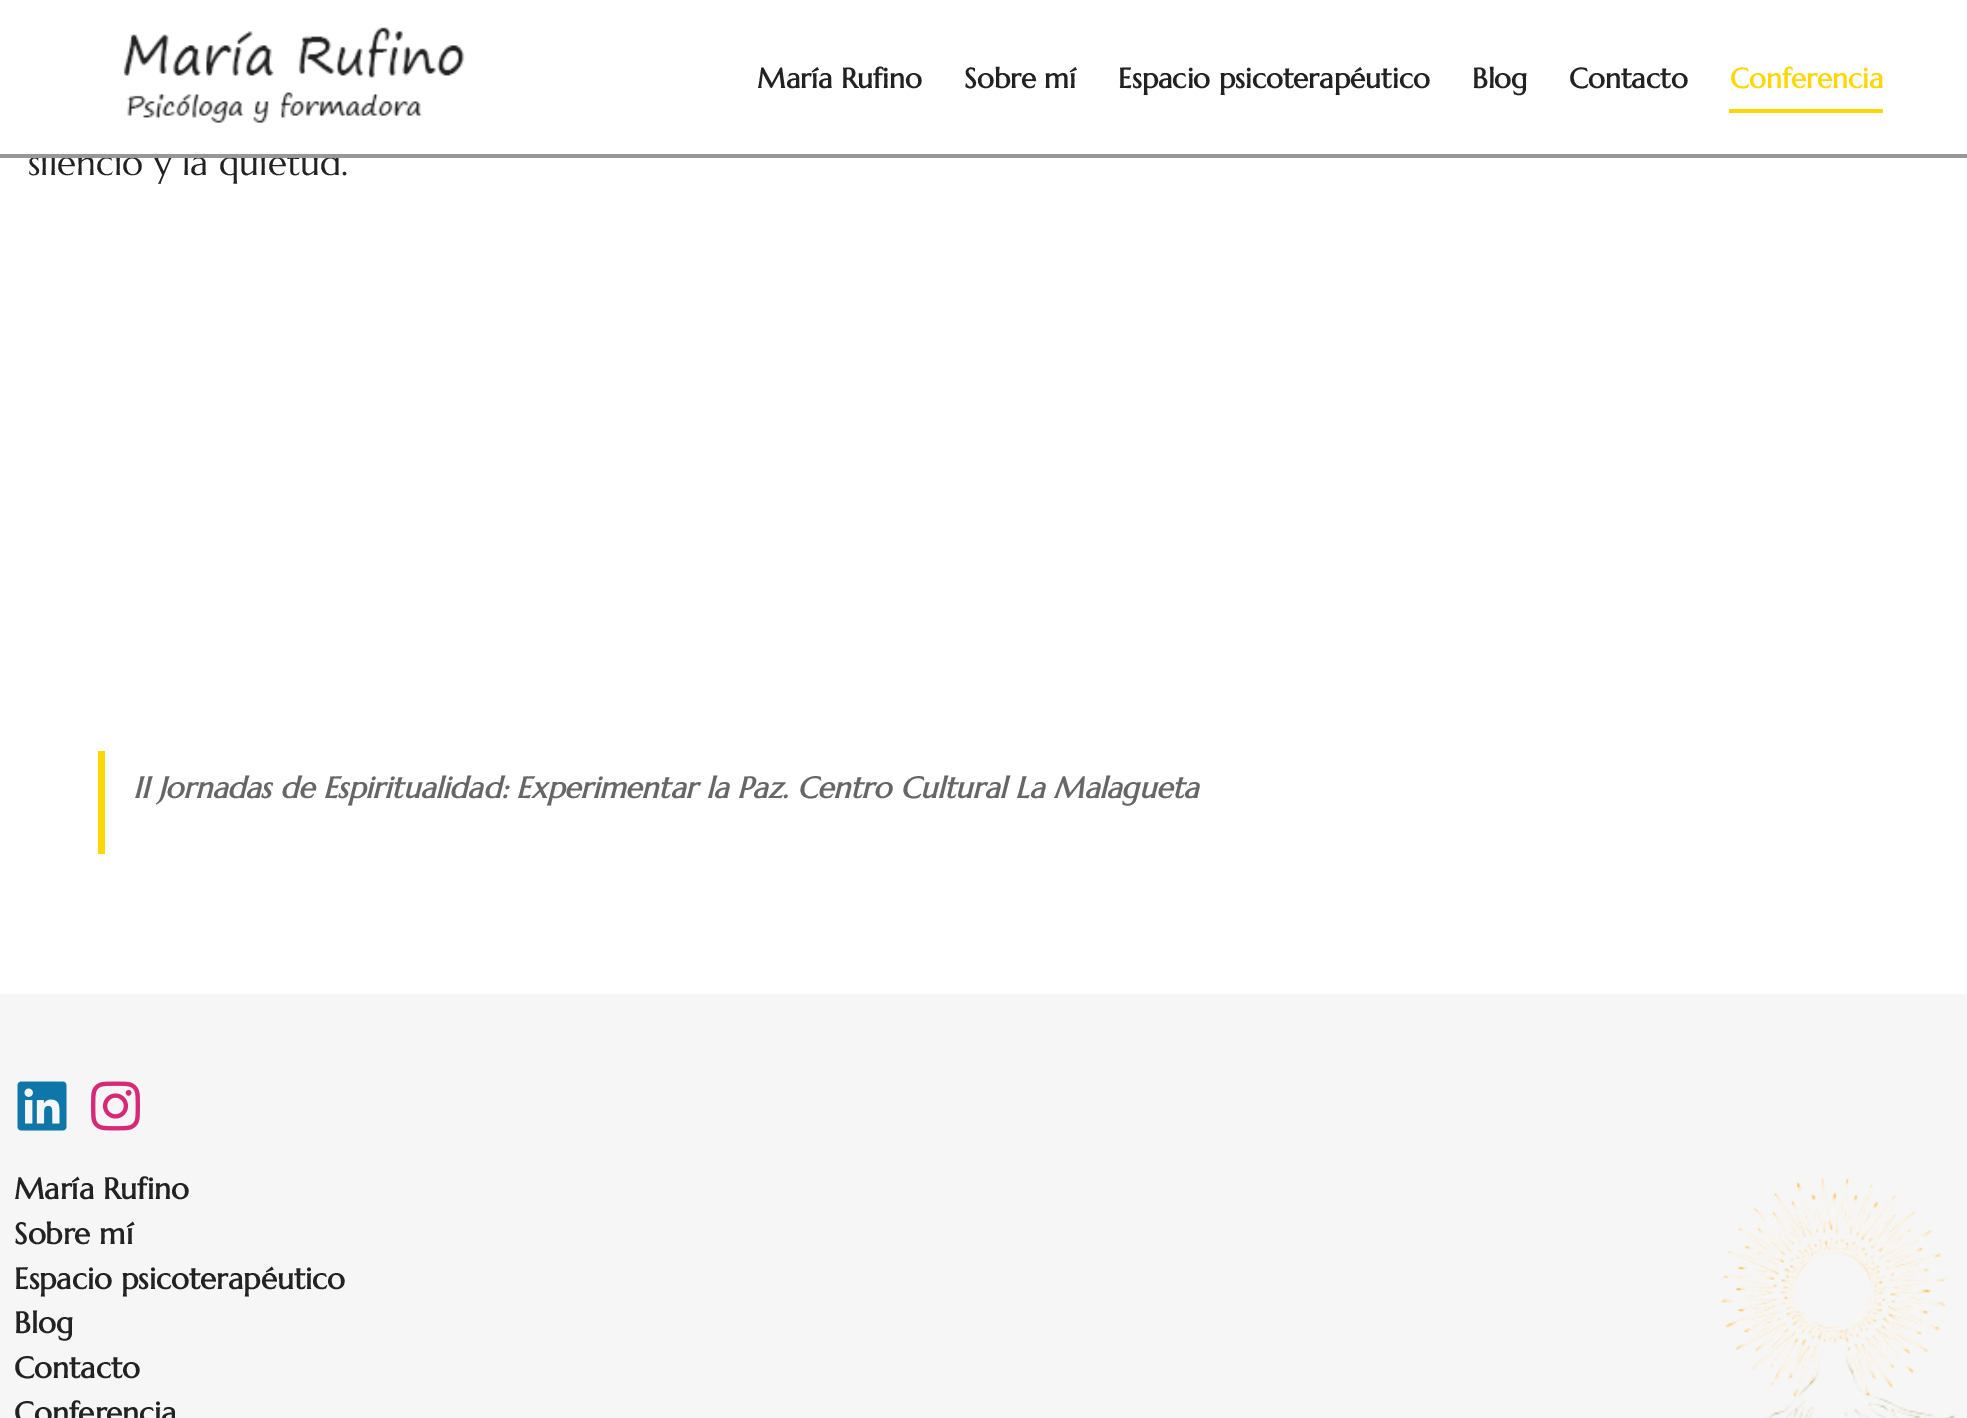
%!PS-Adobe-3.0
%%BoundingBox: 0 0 1967 1418
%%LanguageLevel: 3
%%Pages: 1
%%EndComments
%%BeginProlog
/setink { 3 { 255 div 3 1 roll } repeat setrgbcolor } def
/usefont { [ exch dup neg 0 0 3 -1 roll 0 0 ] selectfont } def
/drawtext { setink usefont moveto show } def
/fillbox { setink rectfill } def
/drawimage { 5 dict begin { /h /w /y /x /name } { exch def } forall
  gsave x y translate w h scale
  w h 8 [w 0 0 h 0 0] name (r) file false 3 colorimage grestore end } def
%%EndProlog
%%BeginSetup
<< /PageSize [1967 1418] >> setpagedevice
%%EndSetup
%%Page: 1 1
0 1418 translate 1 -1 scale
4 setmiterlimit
0 0 1967 1418 255 255 255 fillbox
(silencio y la quietud.) 28 175 /Marcellus-Regular 35 34 34 34 drawtext
42 149 297 5 255 255 255 fillbox
0 154 1967 4 151 151 151 fillbox
(assets/img1.rgb) 123 27 342 96 drawimage
(María Rufino) 757 88 /Marcellus-Bold 28 34 34 34 drawtext
(Sobre mí) 964 88 /Marcellus-Bold 28 34 34 34 drawtext
(Espacio psicoterapéutico) 1118 88 /Marcellus-Bold 28 34 34 34 drawtext
(Blog) 1472 88 /Marcellus-Bold 28 34 34 34 drawtext
(Contacto) 1569 88 /Marcellus-Bold 28 34 34 34 drawtext
(Conferencia) 1730 88 /Marcellus-Bold 28 255 215 0 drawtext
1729 109 154 4 255 215 0 fillbox
98 751 7 103 255 215 0 fillbox
(II Jornadas de Espiritualidad: Experimentar la Paz. Centro Cultural La Malagueta) 133 798 /Marcellus-BoldItalic 29.75 102 102 102 drawtext
0 994 1967 424 246 246 246 fillbox
(assets/img2.rgb) 17 1081 50 50 drawimage
(assets/img3.rgb) 91 1081 49 50 drawimage
(María Rufino) 14 1199 /Marcellus-Bold 29.75 34 34 34 drawtext
(Sobre mí) 14 1244 /Marcellus-Bold 29.75 34 34 34 drawtext
(Espacio psicoterapéutico) 14 1289 /Marcellus-Bold 29.75 34 34 34 drawtext
(Blog) 14 1333 /Marcellus-Bold 29.75 34 34 34 drawtext
(Contacto) 14 1378 /Marcellus-Bold 29.75 34 34 34 drawtext
(Conferencia) 14 1423 /Marcellus-Bold 29.75 34 34 34 drawtext
(assets/img4.rgb) 1720 1177 236 241 drawimage
showpage
%%EOF
